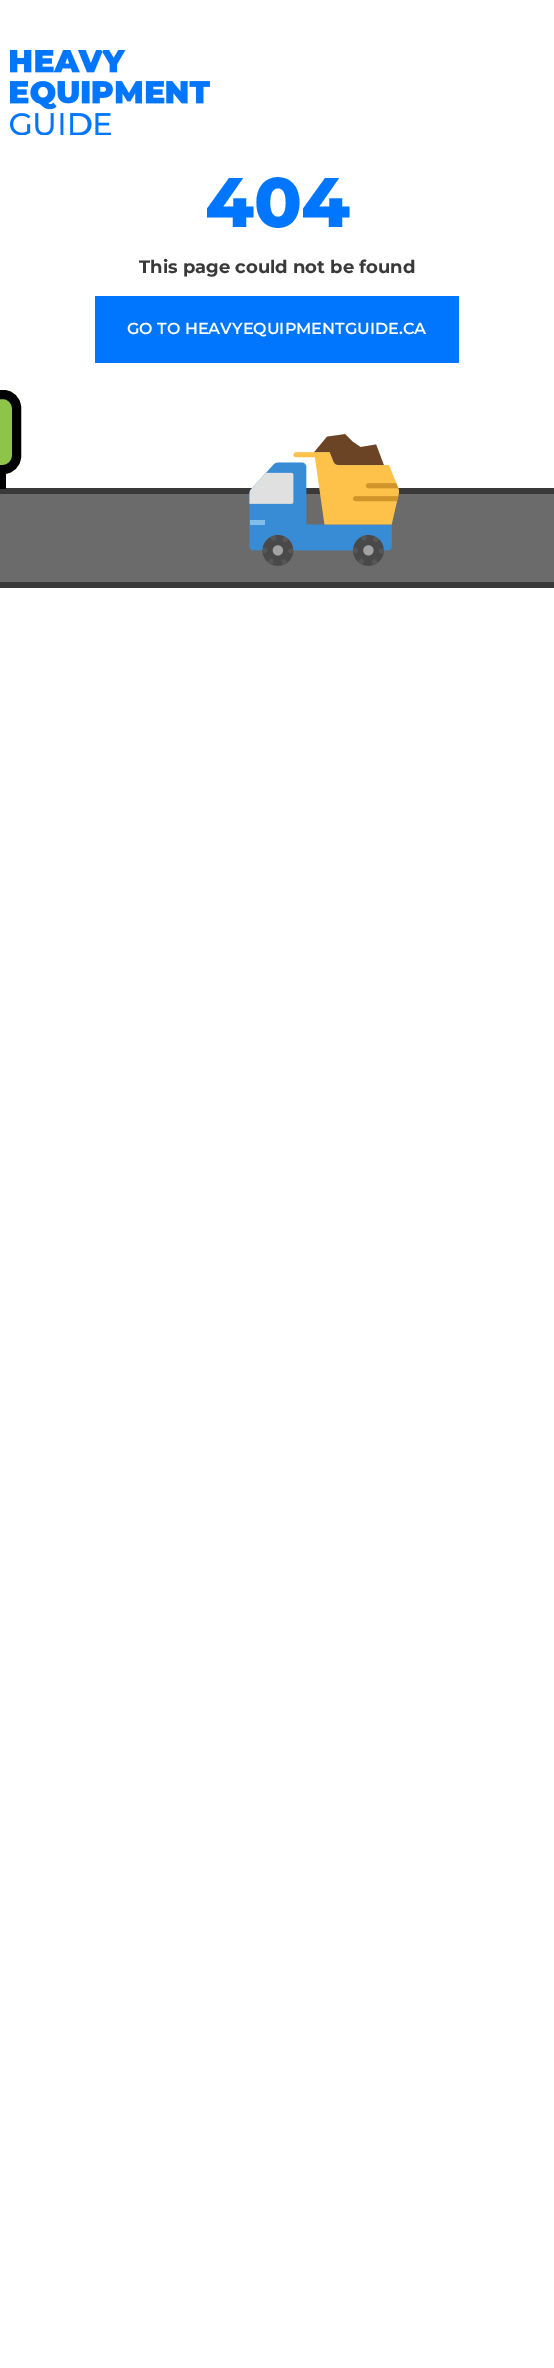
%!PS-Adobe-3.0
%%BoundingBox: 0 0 554 2368
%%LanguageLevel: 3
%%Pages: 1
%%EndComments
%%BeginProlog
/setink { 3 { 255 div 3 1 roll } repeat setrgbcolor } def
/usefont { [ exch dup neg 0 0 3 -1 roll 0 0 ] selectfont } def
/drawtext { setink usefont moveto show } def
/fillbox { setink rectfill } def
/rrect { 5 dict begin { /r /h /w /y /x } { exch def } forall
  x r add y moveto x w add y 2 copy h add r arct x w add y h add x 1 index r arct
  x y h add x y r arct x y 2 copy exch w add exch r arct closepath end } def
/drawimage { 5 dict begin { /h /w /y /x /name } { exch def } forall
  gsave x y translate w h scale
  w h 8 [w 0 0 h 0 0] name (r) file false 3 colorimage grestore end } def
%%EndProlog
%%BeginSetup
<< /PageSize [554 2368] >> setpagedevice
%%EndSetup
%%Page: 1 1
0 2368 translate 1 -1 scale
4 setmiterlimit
0 0 554 2368 255 255 255 fillbox
(assets/img1.rgb) 10 50 200 85 drawimage
/Montserrat-ExtraBold 70 usefont
0 118 255 setink
205 227 moveto -0.5 0 (404) ashow
(This page could not be found) 139 273 /Montserrat-Bold 18 57 57 57 drawtext
95 296 364 67 0 118 255 fillbox
(GO TO HEAVYEQUIPMENTGUIDE.CA) 127 334 /Montserrat-SemiBold 16 255 255 255 drawtext
0 494 554 88 107 107 107 fillbox
0 488 554 6 57 57 57 fillbox
0 582 554 6 57 57 57 fillbox
142 196 73 setink
0 390 moveto 3 390 lineto 13 390 21 398 21 408 curveto 21 456 lineto 21 466 13 474 3 474 curveto 0 474 lineto closepath fill
0 0 0 setink
9 setlinewidth
-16.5 394.5 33 75 13.5 rrect stroke
0 471 6 18 0 0 0 fillbox
(assets/img2.rgb) 249 434 150 132 drawimage
showpage
%%EOF
